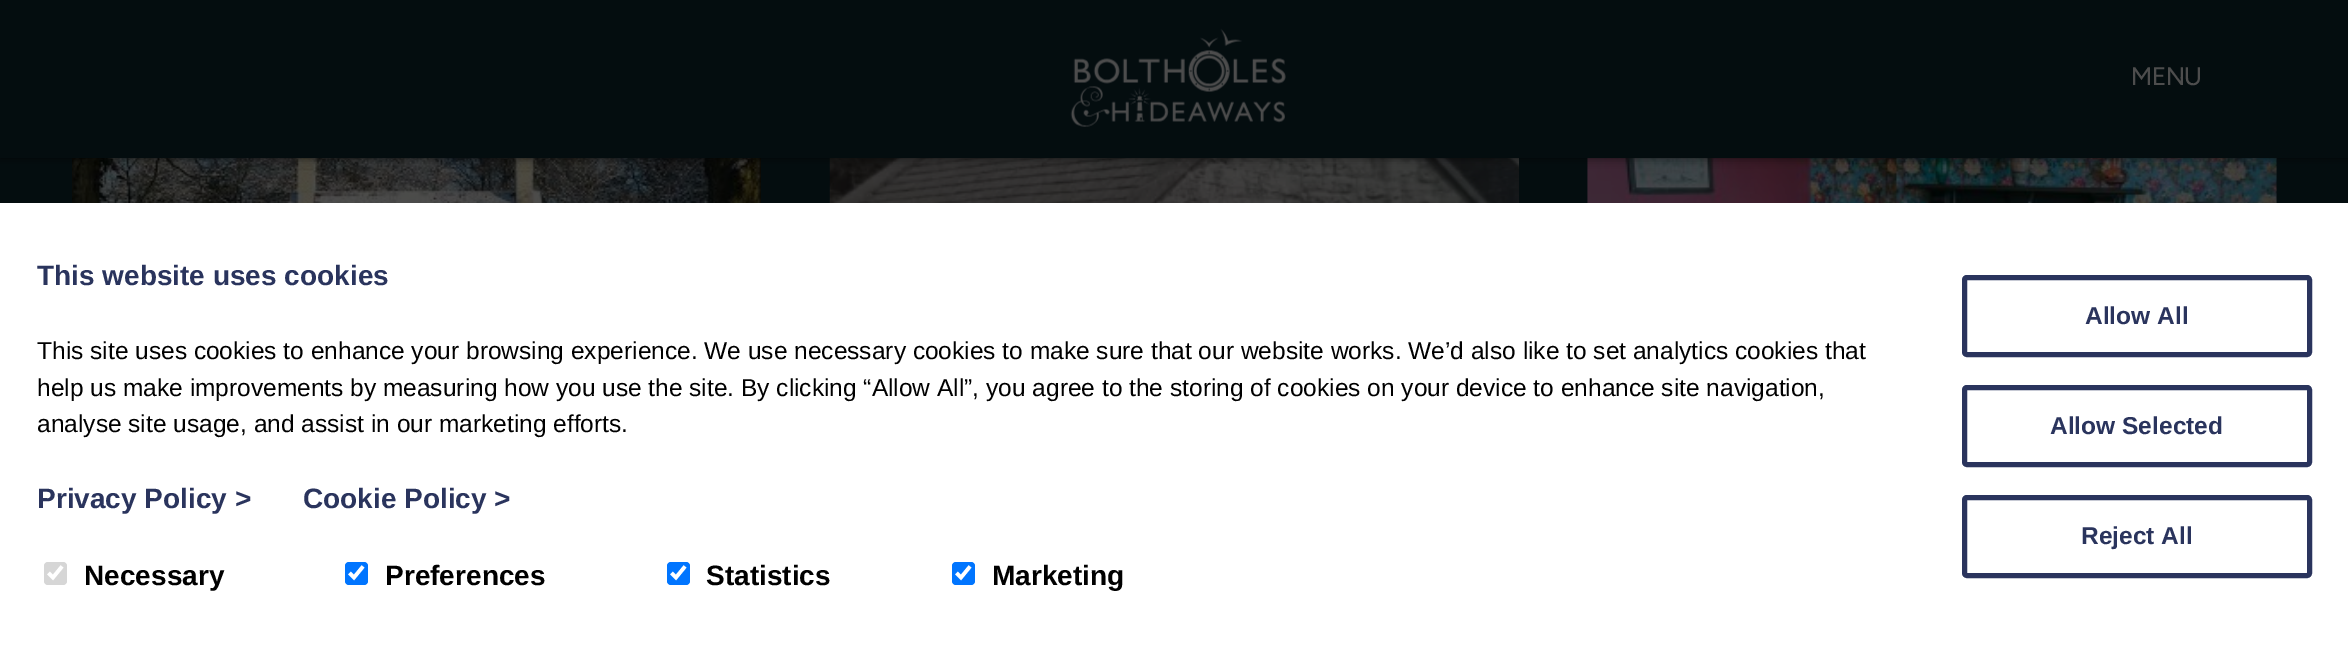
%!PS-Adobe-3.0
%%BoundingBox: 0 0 2348 648
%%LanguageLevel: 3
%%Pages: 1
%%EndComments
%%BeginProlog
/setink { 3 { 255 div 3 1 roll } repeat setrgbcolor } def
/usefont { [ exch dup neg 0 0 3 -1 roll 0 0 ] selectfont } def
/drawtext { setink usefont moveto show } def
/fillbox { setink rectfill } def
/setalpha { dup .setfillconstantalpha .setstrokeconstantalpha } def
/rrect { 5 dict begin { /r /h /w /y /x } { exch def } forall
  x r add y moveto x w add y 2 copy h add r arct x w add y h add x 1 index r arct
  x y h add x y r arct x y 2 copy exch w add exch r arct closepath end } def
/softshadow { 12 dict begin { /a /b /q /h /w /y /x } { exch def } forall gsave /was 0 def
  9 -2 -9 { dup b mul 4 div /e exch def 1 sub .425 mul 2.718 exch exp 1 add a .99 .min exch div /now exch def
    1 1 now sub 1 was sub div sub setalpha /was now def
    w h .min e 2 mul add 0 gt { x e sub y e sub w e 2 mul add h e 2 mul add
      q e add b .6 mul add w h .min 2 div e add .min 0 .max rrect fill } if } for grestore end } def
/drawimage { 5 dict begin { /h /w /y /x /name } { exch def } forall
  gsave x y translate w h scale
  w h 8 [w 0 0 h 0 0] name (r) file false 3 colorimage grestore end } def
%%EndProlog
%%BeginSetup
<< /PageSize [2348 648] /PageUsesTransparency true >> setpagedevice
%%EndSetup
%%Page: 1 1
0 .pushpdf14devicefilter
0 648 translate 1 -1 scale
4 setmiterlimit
0 0 2348 648 4 13 15 fillbox
(assets/img2.rgb) 72 158 689 45 drawimage
(assets/img3.rgb) 829 158 690 45 drawimage
(assets/img4.rgb) 1587 158 690 45 drawimage
0 0 0 setink
0 0 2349 158 0 5 0.6 softshadow
0 0 2348 158 4 13 15 fillbox
(assets/img1.rgb) 1070 28 216 99 drawimage
(MENU) 2131 85 /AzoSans-Regular 24.5 77 77 77 drawtext
0 203 2348 445 255 255 255 fillbox
(This website uses cookies) 37 285 /LiberationSans-Bold 28 42 52 93 drawtext
(This site uses cookies to enhance your browsing experience. We use necessary cookies to make sure that our website works. We’d also like to set analytics cookies that) 37 359 /LiberationSans-Regular 24.5 0 0 0 drawtext
(help us make improvements by measuring how you use the site. By clicking “Allow All”, you agree to the storing of cookies on your device to enhance site navigation,) 37 396 /LiberationSans-Regular 24.5 0 0 0 drawtext
(analyse site usage, and assist in our marketing efforts.) 37 432 /LiberationSans-Regular 24.5 0 0 0 drawtext
(Privacy Policy >) 37 508 /LiberationSans-Bold 28 42 52 93 drawtext
(Cookie Policy >) 303 508 /LiberationSans-Bold 28 42 52 93 drawtext
214 214 214 setink
44 562 23 23 4 rrect fill
255 255 255 setink
3.6 setlinewidth
48.5 573 moveto 53 577.5 lineto 62 566.5 lineto stroke
(Necessary) 84 585 /LiberationSans-Bold 28 0 0 0 drawtext
0 117 255 setink
345 562 23 23 4 rrect fill
255 255 255 setink
349.5 573 moveto 354 577.5 lineto 363 566.5 lineto stroke
(Preferences) 385 585 /LiberationSans-Bold 28 0 0 0 drawtext
0 117 255 setink
667 562 23 23 4 rrect fill
255 255 255 setink
671.5 573 moveto 676 577.5 lineto 685 566.5 lineto stroke
(Statistics) 706 585 /LiberationSans-Bold 28 0 0 0 drawtext
0 117 255 setink
952 562 23 23 4 rrect fill
255 255 255 setink
956.5 573 moveto 961 577.5 lineto 970 566.5 lineto stroke
(Marketing) 992 585 /LiberationSans-Bold 28 0 0 0 drawtext
42 52 93 setink
5 setlinewidth
1964.5 277.5 345 77 2.5 rrect stroke
(Allow All) 2085 324 /LiberationSans-Bold 24.5 42 52 93 drawtext
1964.5 387.5 345 77 2.5 rrect stroke
(Allow Selected) 2050 434 /LiberationSans-Bold 24.5 42 52 93 drawtext
1964.5 497.5 345 78 2.5 rrect stroke
(Reject All) 2081 544 /LiberationSans-Bold 24.5 42 52 93 drawtext
.poppdf14devicefilter showpage
%%EOF
